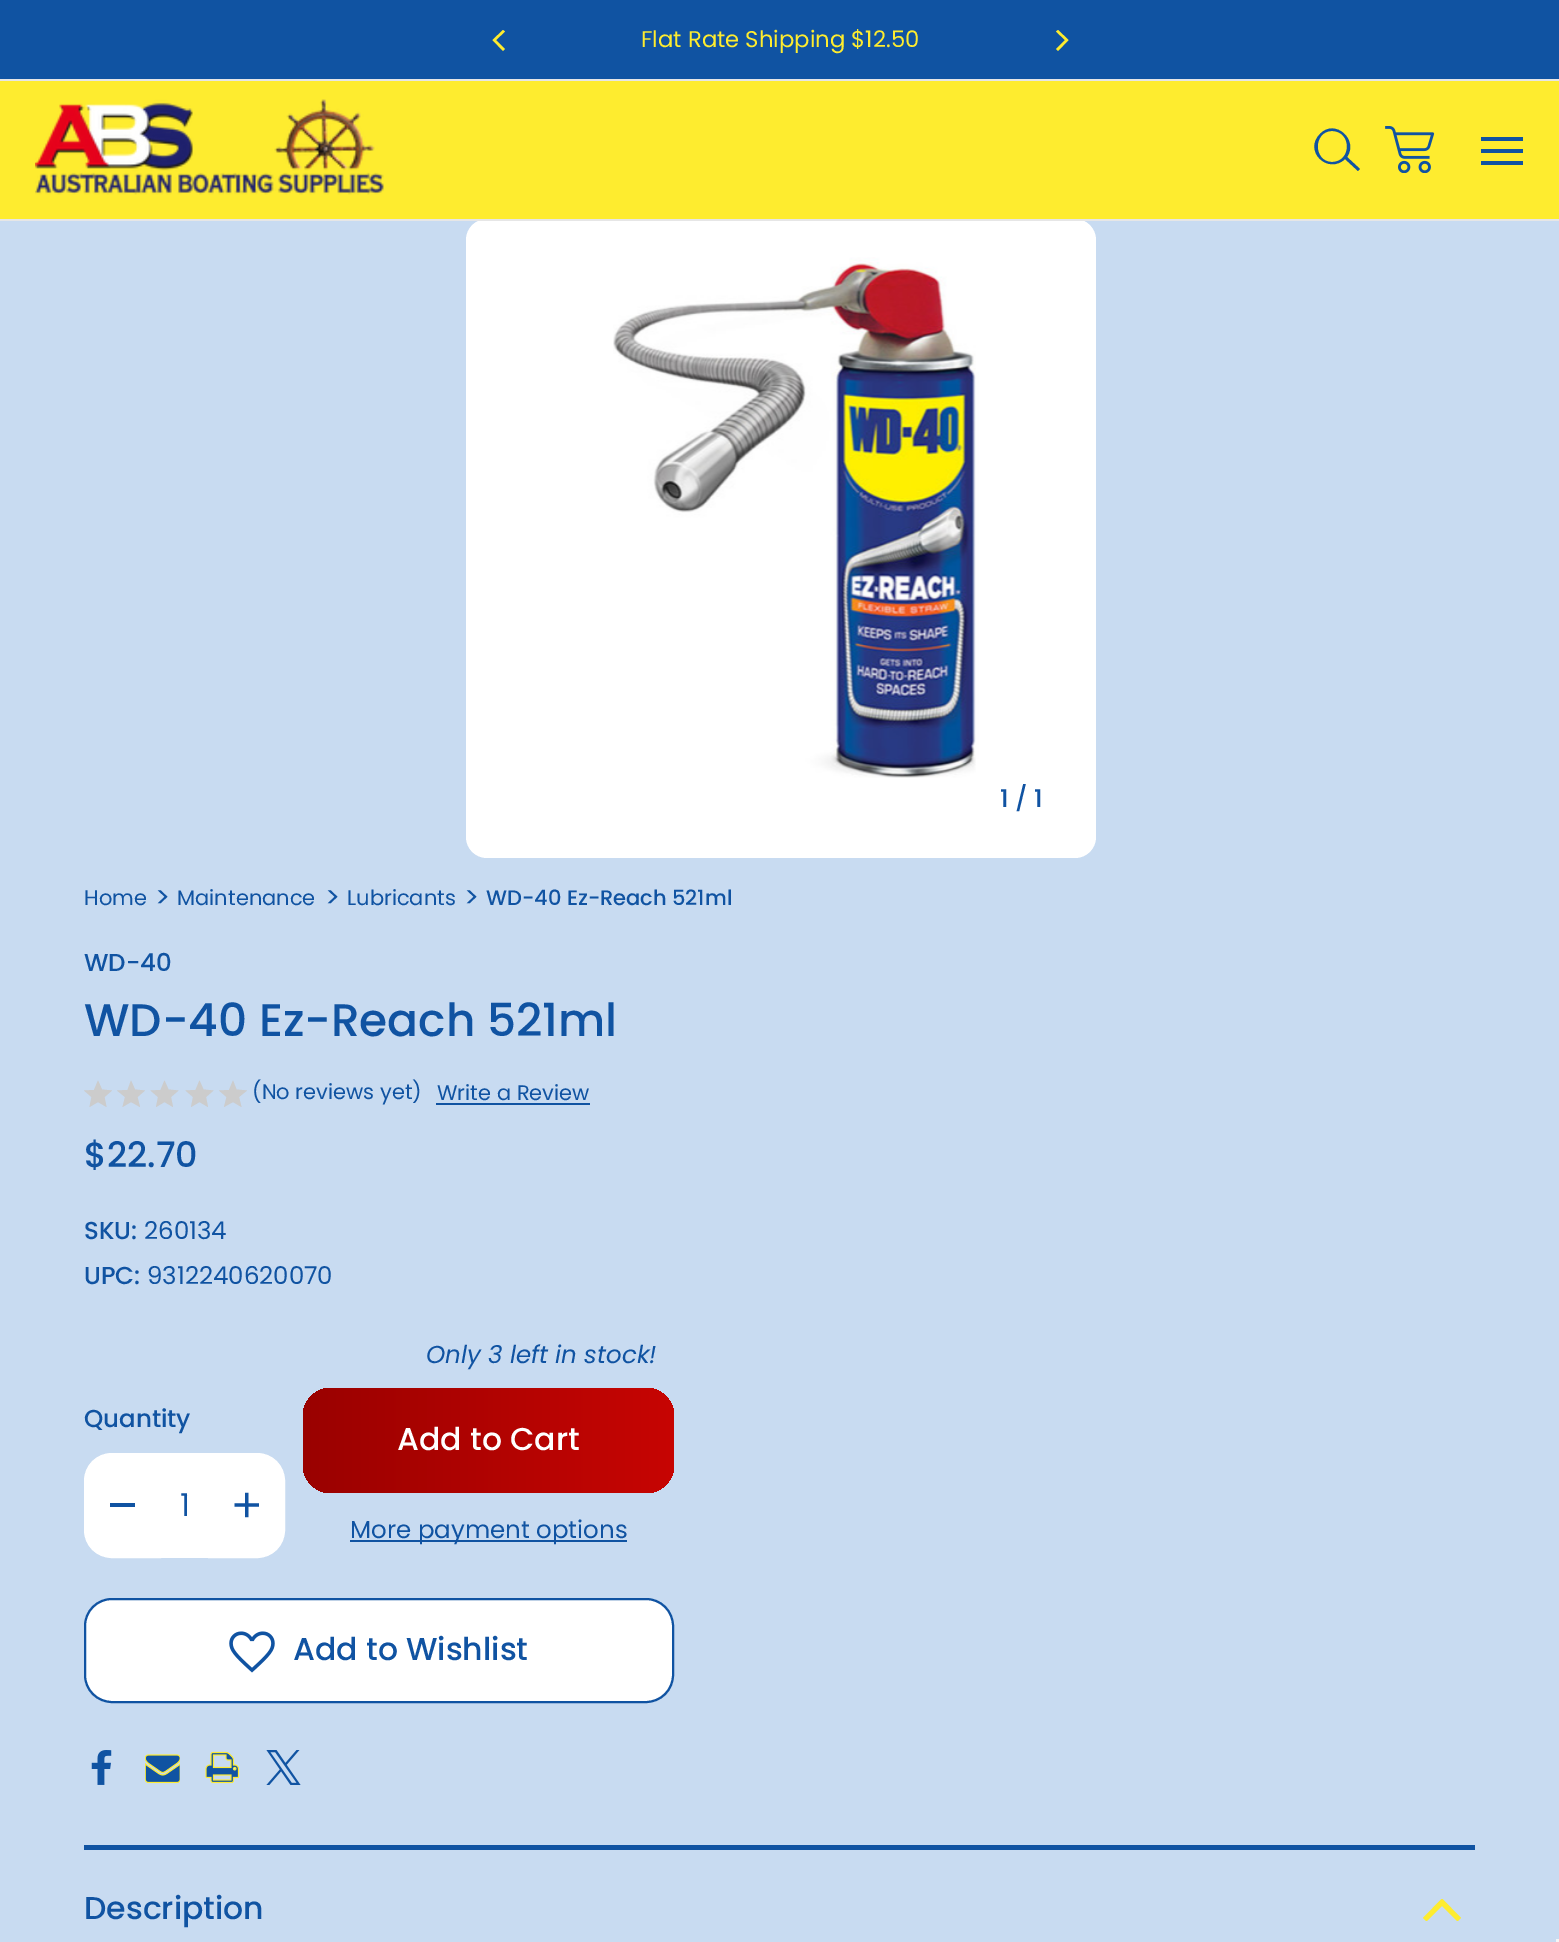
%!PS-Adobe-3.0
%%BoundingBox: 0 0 1559 1942
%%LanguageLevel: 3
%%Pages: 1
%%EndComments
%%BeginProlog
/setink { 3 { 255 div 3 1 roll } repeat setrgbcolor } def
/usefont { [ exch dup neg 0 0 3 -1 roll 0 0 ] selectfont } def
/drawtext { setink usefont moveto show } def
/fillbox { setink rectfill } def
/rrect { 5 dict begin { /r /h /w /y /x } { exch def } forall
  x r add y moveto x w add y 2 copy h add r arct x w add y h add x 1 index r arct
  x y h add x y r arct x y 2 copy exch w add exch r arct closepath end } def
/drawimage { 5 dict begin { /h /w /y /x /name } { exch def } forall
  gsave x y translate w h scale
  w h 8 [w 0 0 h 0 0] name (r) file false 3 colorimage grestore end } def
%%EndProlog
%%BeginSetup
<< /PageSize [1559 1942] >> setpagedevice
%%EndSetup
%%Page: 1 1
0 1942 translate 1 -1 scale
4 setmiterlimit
0 0 1559 1942 200 219 241 fillbox
0 81 1559 138 254 236 47 fillbox
255 255 255 setink
466 219 630 639 21 rrect fill
0 219 1559 2 230 230 230 fillbox
0 0 1559 79 16 83 162 fillbox
0 79 1559 2 230 230 230 fillbox
254 236 47 setink
503 51 moveto 492.5 40 lineto 503 30 lineto 505 31.5 lineto 496 40 lineto 505 49 lineto closepath fill
(Flat Rate Shipping $12.50) 641 47 /Poppins-Regular 22.75 254 236 47 drawtext
1058 30 moveto 1068.5 40 lineto 1058 51 lineto 1056 49 lineto 1065 40 lineto 1056 31.5 lineto closepath fill
(assets/img1.rgb) 35 99 349 96 drawimage
16 83 162 setink
1360 169 moveto 1347 157 lineto 1359 140 1335 118 1320 134 curveto 1303 151 1328 175 1345 159 curveto 1358 171 lineto closepath 1332 162 moveto 1313 162 1313 131 1332 131 curveto 1352 131 1352 162 1332 162 curveto closepath fill
(assets/img2.rgb) 1385 126 50 47 drawimage
1481 149 42 4 16 83 162 fillbox
1481 137 42 4 16 83 162 fillbox
1481 161 42 4 16 83 162 fillbox
(assets/img3.rgb) 613 221 475 557 drawimage
(1 / 1) 1000 807 /Poppins-Medium 24.5 16 83 162 drawtext
(Home) 84 905 /Poppins-Regular 21 16 83 162 drawtext
(>) 155 907 /Poppins-Regular 28 16 83 162 drawtext
(Maintenance) 177 905 /Poppins-Regular 21 16 83 162 drawtext
(>) 325 907 /Poppins-Regular 28 16 83 162 drawtext
(Lubricants) 347 905 /Poppins-Regular 21 16 83 162 drawtext
(>) 464 907 /Poppins-Regular 28 16 83 162 drawtext
(WD-40 Ez-Reach 521ml) 486 905 /Poppins-Medium 21 16 83 162 drawtext
(WD-40) 84 971 /Poppins-Medium 24.5 16 83 162 drawtext
(WD-40 Ez-Reach 521ml) 84 1036 /Poppins-Medium 45.5 16 83 162 drawtext
204 204 204 setink
89.5 1107 moveto 91.5 1097 lineto 84 1090.5 lineto 94 1090 lineto 98 1080.5 lineto 102 1089.5 lineto 112 1090.5 lineto 104.5 1097 lineto 106.5 1107 lineto 98 1102 lineto closepath 122.5 1107 moveto 125 1097 lineto 117 1090.5 lineto 127.5 1090 lineto 131 1080.5 lineto 135 1089.5 lineto 145 1090.5 lineto 137.5 1097 lineto 140 1107 lineto 131 1102 lineto closepath fill
156 1107 moveto 158 1097 lineto 150.5 1090.5 lineto 160.5 1090 lineto 164.5 1080.5 lineto 168.5 1089.5 lineto 178.5 1090.5 lineto 171 1097 lineto 173 1107 lineto 164.5 1102 lineto closepath 191 1107 moveto 193 1097 lineto 185.5 1090.5 lineto 195.5 1090 lineto 199.5 1080.5 lineto 203.5 1089.5 lineto 213.5 1090.5 lineto 206 1097 lineto 208 1107 lineto 199.5 1102 lineto closepath fill
224 1107 moveto 226.5 1097 lineto 219 1090.5 lineto 229 1090 lineto 233 1080.5 lineto 236.5 1089.5 lineto 247 1090.5 lineto 239 1097 lineto 241.5 1107 lineto 233 1102 lineto closepath fill
(\(No reviews yet\)) 252 1099 /Poppins-Regular 21 16 83 162 drawtext
(Write a Review) 437 1100 /Poppins-Regular 21 16 83 162 drawtext
436 1103 154 2 16 83 162 fillbox
($22.70) 84 1167 /Poppins-Medium 35 16 83 162 drawtext
(SKU:) 84 1239 /Poppins-Medium 24.5 16 83 162 drawtext
(260134) 144 1239 /Poppins-Regular 24.5 16 83 162 drawtext
(UPC:) 84 1284 /Poppins-Medium 24.5 16 83 162 drawtext
(9312240620070) 147 1284 /Poppins-Regular 24.5 16 83 162 drawtext
(Quantity) 84 1427 /Poppins-Medium 24.5 16 83 162 drawtext
255 255 255 setink
112 1454 moveto 160 1454 lineto 160 1557 lineto 112 1557 lineto 97 1557 85 1545 85 1530 curveto 85 1481 lineto 85 1466 97 1454 112 1454 curveto closepath gsave fill grestore
2 setlinewidth
stroke
110 1503 25 4 16 83 162 fillbox
161 1453 47 105 255 255 255 fillbox
(1) 180 1516 /Poppins-Regular 31.5 16 83 162 drawtext
255 255 255 setink
209 1454 moveto 257 1454 lineto 272 1454 284 1466 284 1481 curveto 284 1530 lineto 284 1545 272 1557 257 1557 curveto 209 1557 lineto closepath gsave fill grestore
stroke
(assets/img4.rgb) 234 1492 25 26 drawimage
(Only 3 left in stock!) 426 1363 /Poppins-Italic 24.5 16 83 162 drawtext
gsave 303 1388 371 105 28 rrect clip newpath
<< /ShadingType 2 /ColorSpace /DeviceRGB /Coords [303 1440 674 1440] /Extend [true true] /Function << /FunctionType 2 /Domain [0 1] /C0 [0.604 0.004 0] /C1 [0.78 0.02 0.012] /N 1 >> >> shfill grestore
(Add to Cart) 397 1450 /Poppins-Medium 31.5 255 255 255 drawtext
350 1540 277 2 16 83 162 fillbox
(More payment options) 350 1538 /Poppins-Regular 24.5 16 83 162 drawtext
255 255 255 setink
85 1599 588 103 27 rrect gsave fill grestore
16 83 162 setink
stroke
(assets/img5.rgb) 229 1631 46 42 drawimage
(Add to Wishlist) 293 1660 /Poppins-Medium 31.5 16 83 162 drawtext
(assets/img6.rgb) 91 1750 21 35 drawimage
(assets/img7.rgb) 145 1754 35 30 drawimage
(assets/img8.rgb) 205 1751 35 33 drawimage
(assets/img9.rgb) 266 1750 35 35 drawimage
84 1845 1391 5 16 83 162 fillbox
(Description) 84 1919 /Poppins-Medium 31.5 16 83 162 drawtext
gsave
1423 1899 38 22 rectclip
254 236 47 setink
1442 1898.5 moveto 1461 1918 lineto 1457.5 1921.5 lineto 1442 1906 lineto 1426.5 1921.5 lineto 1423 1918 lineto closepath fill
grestore
1556 1939 3 3 245 245 245 fillbox
showpage
%%EOF
